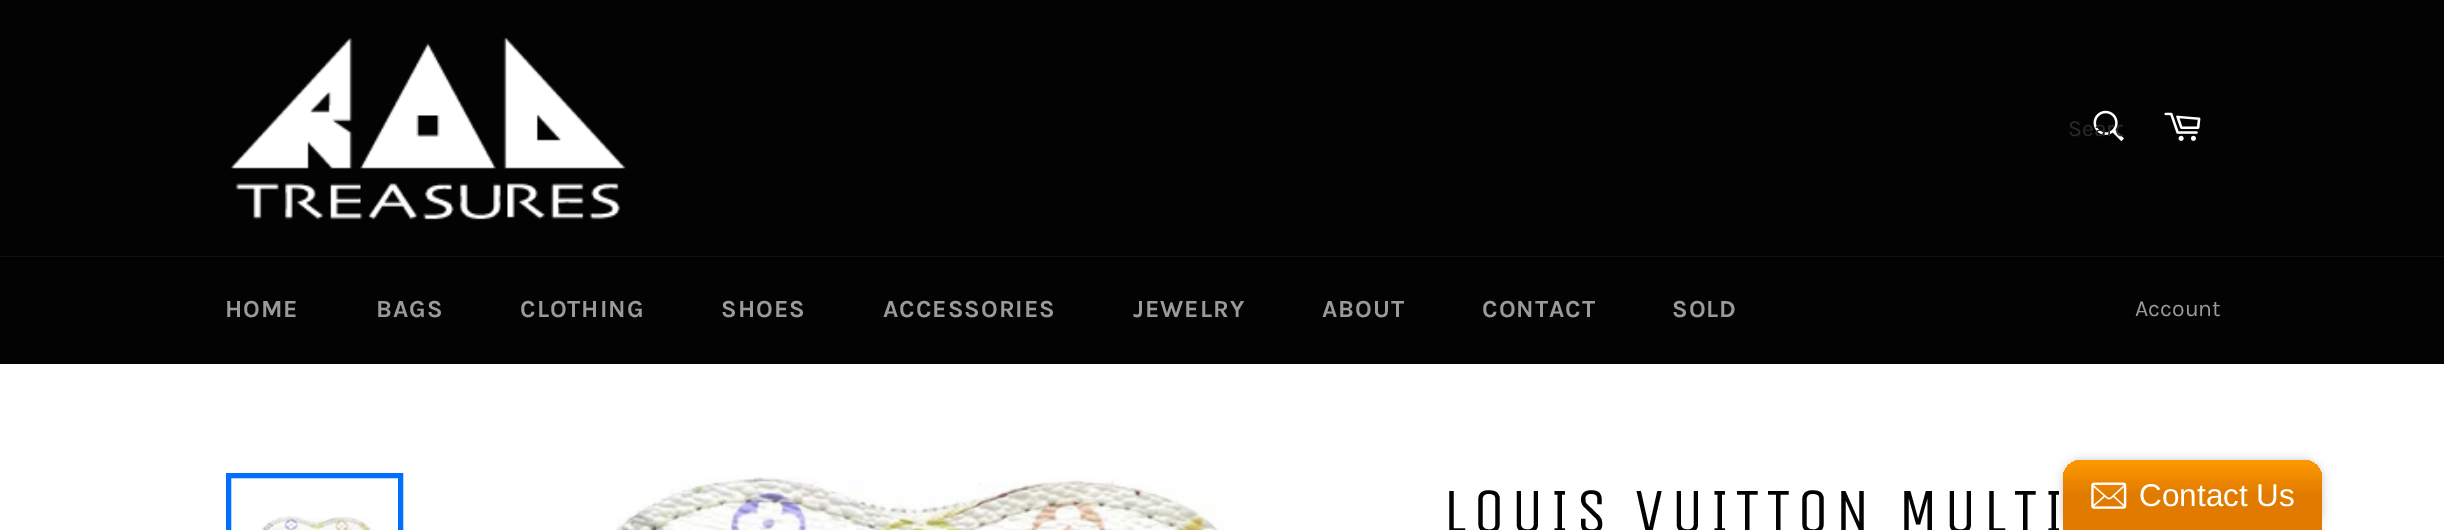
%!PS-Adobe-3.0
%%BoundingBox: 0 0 2444 530
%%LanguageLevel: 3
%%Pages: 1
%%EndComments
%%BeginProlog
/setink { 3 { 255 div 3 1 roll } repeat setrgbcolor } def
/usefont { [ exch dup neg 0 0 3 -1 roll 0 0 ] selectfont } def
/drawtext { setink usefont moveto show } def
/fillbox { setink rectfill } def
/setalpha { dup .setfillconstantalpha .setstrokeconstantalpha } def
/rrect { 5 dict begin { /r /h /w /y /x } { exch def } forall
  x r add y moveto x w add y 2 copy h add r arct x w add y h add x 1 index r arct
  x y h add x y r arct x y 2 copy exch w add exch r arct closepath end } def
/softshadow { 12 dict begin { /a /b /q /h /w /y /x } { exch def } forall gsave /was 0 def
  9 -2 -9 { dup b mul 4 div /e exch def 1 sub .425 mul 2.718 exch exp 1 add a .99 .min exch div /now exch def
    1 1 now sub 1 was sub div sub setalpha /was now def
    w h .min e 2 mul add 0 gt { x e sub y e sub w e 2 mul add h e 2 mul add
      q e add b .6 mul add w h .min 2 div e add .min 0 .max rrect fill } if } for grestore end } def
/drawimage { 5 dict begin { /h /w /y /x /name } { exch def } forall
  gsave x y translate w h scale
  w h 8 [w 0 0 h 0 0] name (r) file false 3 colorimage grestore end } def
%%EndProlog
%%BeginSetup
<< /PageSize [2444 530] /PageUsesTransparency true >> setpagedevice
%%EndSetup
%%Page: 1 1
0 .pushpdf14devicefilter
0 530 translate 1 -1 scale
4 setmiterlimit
0 0 2444 530 3 3 3 fillbox
(assets/img1.rgb) 230 38 396 182 drawimage
(assets/img2.rgb) 2093 110 31 32 drawimage
gsave
2067 116 56 26 rectclip
(Searc) 2068 136 /Karla-Regular 23 42 42 42 drawtext
grestore
(assets/img3.rgb) 2164 112 37 29 drawimage
0 256 2444 1 16 16 16 fillbox
/Karla-Bold 24.5 usefont
154 154 154 setink
225 317 moveto 1 0 (HOME) ashow
376 317 moveto 1 0 (BAGS) ashow
520 317 moveto 1 0 (CLOTHING) ashow
721 317 moveto 1 0 (SHOES) ashow
883 317 moveto 1 0 (ACCESSORIES) ashow
1133 317 moveto 1 0 (JEWELRY) ashow
1322 317 moveto 1 0 (ABOUT) ashow
1482 317 moveto 1 0 (CONTACT) ashow
1672 317 moveto 1 0 (SOLD) ashow
(Account) 2135 316 /Karla-Regular 23 154 154 154 drawtext
0 364 2444 166 255 255 255 fillbox
(assets/img4.rgb) 260 516 112 14 drawimage
0 110 255 setink
5 setlinewidth
228.5 475.5 172 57 rectstroke
(assets/img5.rgb) 614 477 609 53 drawimage
/UnicaOne-Regular 63 usefont
3 3 3 setink
1443 532 moveto 6.25 0 (LOUIS VUITTON MULTI) ashow
0 0 0 setink
2063 460 259 70 18 4.5 0.2 softshadow
gsave 2081 460 moveto 2304 460 lineto 2314 460 2322 468 2322 478 curveto 2322 530 lineto 2063 530 lineto 2063 478 lineto 2063 468 2071 460 2081 460 curveto closepath clip newpath
<< /ShadingType 2 /ColorSpace /DeviceRGB /Coords [2193 460 2193 530] /Extend [true true] /Function << /FunctionType 3 /Domain [0 1] /Functions [<< /FunctionType 2 /Domain [0 1] /C0 [1 0.6 0] /C1 [0.882 0.482 0] /N 1 >> << /FunctionType 2 /Domain [0 1] /C0 [0.882 0.482 0] /C1 [0.882 0.482 0] /N 1 >>] /Bounds [0.5] /Encode [0 1 0 1] >> >> shfill grestore
(assets/img6.rgb) 2091 482 36 27 drawimage
(Contact Us) 2139 506 /LiberationSans-Regular 31.5 255 255 255 drawtext
.poppdf14devicefilter showpage
%%EOF
